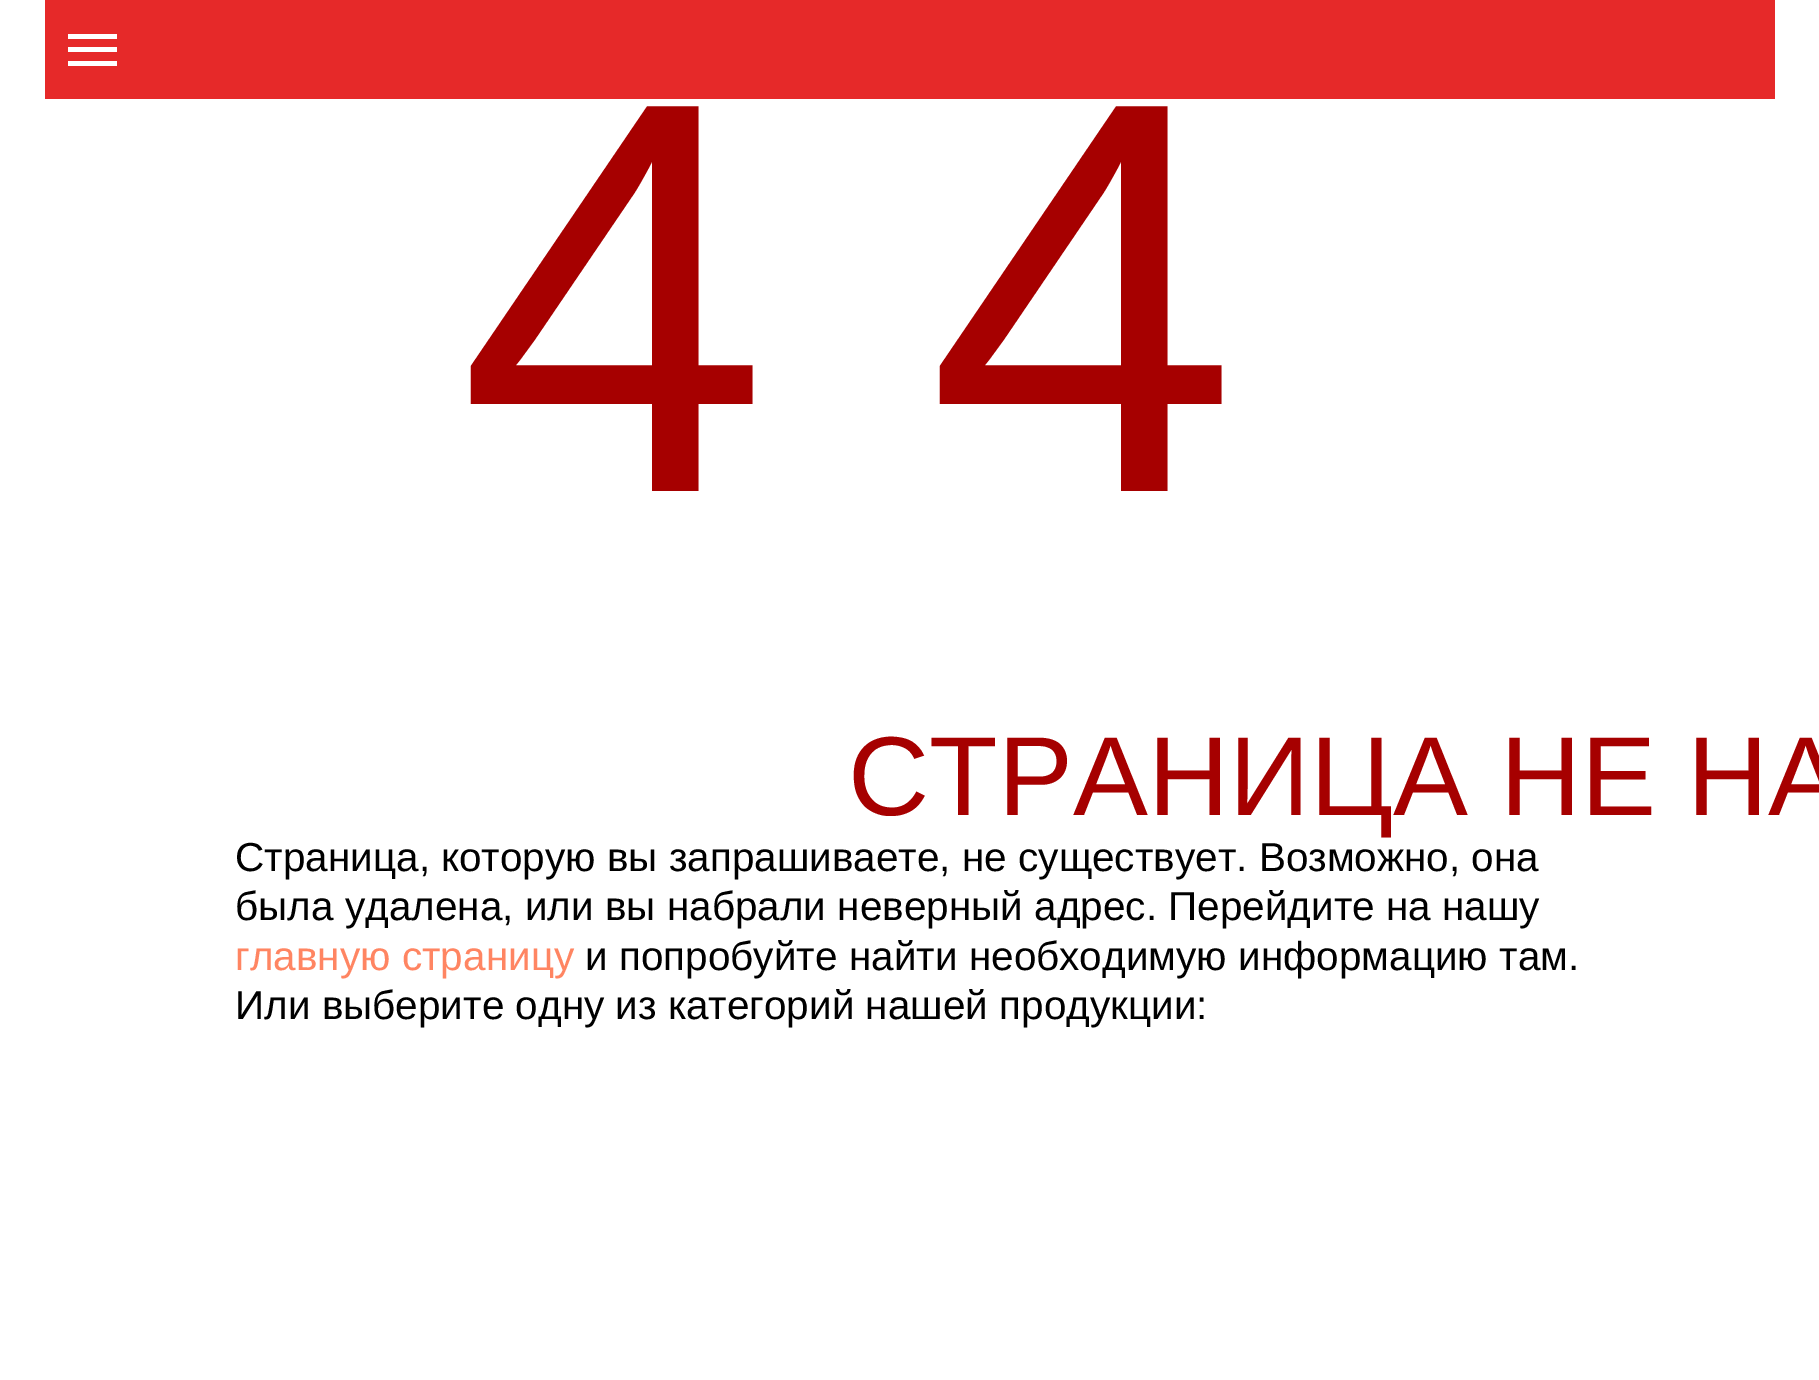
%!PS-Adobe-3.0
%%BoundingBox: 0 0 1819 1380
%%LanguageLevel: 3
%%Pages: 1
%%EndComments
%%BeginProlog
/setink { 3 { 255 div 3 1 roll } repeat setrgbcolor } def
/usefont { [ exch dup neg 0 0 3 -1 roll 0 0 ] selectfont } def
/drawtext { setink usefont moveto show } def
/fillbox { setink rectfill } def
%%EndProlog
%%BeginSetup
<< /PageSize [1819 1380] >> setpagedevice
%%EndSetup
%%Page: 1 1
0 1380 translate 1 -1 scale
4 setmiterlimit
0 0 1819 1380 255 255 255 fillbox
45 0 1730 99 230 41 41 fillbox
68 34 49 5 255 255 255 fillbox
68 47 49 5 255 255 255 fillbox
68 61 49 5 255 255 255 fillbox
(4 4) 458 491 /LiberationSans-Regular 562 166 0 0 drawtext
(СТРАНИЦА НЕ НА) 848 815 /LiberationSans-Regular 112.5 166 0 0 drawtext
(Страница, которую вы запрашиваете, не существует. Возможно, она) 235 871 /LiberationSans-Regular 40.5 0 0 0 drawtext
(была удалена, или вы набрали неверный адрес. Перейдите на нашу) 235 920 /LiberationSans-Regular 40.5 0 0 0 drawtext
(главную страницу) 235 970 /LiberationSans-Regular 40.5 255 133 98 drawtext
(и попробуйте найти необходимую информацию там.) 585 970 /LiberationSans-Regular 40.5 0 0 0 drawtext
(Или выберите одну из категорий нашей продукции:) 235 1019 /LiberationSans-Regular 40.5 0 0 0 drawtext
showpage
%%EOF
